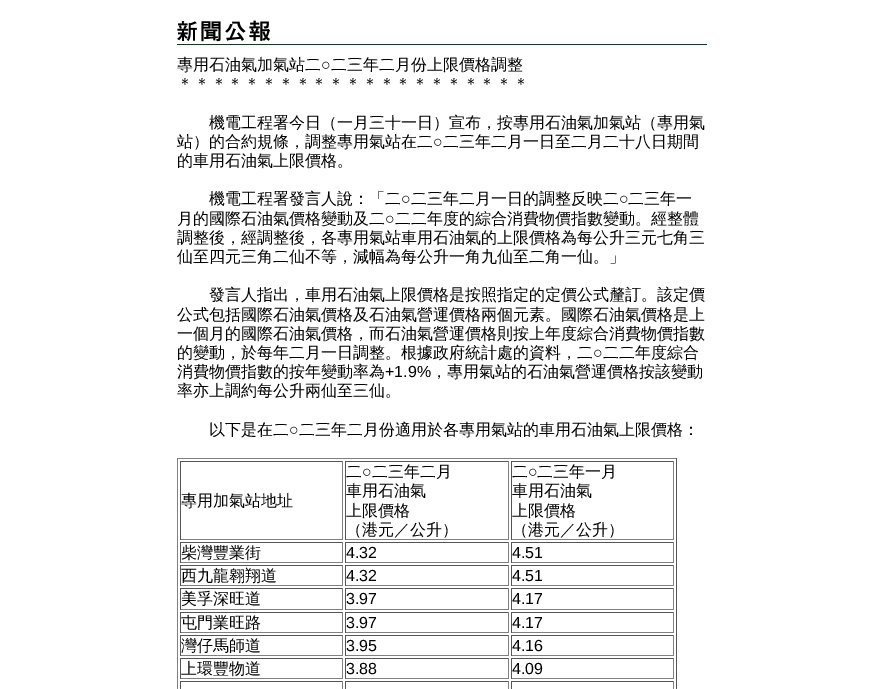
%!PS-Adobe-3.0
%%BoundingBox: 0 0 884 689
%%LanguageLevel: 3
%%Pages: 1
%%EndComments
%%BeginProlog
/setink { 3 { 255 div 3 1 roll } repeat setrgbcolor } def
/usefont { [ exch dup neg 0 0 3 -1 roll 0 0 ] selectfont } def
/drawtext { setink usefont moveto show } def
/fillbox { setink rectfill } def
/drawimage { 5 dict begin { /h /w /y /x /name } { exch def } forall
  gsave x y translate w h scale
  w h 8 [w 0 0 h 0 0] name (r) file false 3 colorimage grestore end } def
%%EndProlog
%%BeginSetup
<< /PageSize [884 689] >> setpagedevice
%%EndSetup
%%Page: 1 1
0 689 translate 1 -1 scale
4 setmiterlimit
0 0 884 689 255 255 255 fillbox
177 44 530 1 5 62 33 fillbox
(assets/img1.rgb) 177 20 93 22 drawimage
(專用石油氣加氣站二) 177 70 /WenQuanYiZenHei-Medium 16 0 0 0 drawtext
(○) 321 70 /LiberationSans-Regular 16 0 0 0 drawtext
(二三年二月份上限價格調整) 331 70 /WenQuanYiZenHei-Medium 16 0 0 0 drawtext
177 89 moveto 0.8 0 (＊＊＊＊＊＊＊＊＊＊＊＊＊＊＊＊＊＊＊＊＊) ashow
(機電工程署今日（一月三十一日）宣布，按專用石油氣加氣站（專用氣) 209 128 /WenQuanYiZenHei-Medium 16 0 0 0 drawtext
(站）的合約規條，調整專用氣站在二) 177 147 /WenQuanYiZenHei-Medium 16 0 0 0 drawtext
(○) 433 147 /LiberationSans-Regular 16 0 0 0 drawtext
(二三年二月一日至二月二十八日期間) 443 147 /WenQuanYiZenHei-Medium 16 0 0 0 drawtext
(的車用石油氣上限價格。) 177 166 /WenQuanYiZenHei-Medium 16 0 0 0 drawtext
(機電工程署發言人說：「二) 209 204 /WenQuanYiZenHei-Medium 16 0 0 0 drawtext
(○) 401 204 /LiberationSans-Regular 16 0 0 0 drawtext
(二三年二月一日的調整反映二) 411 204 /WenQuanYiZenHei-Medium 16 0 0 0 drawtext
(○) 619 204 /LiberationSans-Regular 16 0 0 0 drawtext
(二三年一) 628 204 /WenQuanYiZenHei-Medium 16 0 0 0 drawtext
(月的國際石油氣價格變動及二) 177 224 /WenQuanYiZenHei-Medium 16 0 0 0 drawtext
(○) 385 224 /LiberationSans-Regular 16 0 0 0 drawtext
(二二年度的綜合消費物價指數變動。經整體) 395 224 /WenQuanYiZenHei-Medium 16 0 0 0 drawtext
(調整後，經調整後，各專用氣站車用石油氣的上限價格為每公升三元七角三) 177 243 /WenQuanYiZenHei-Medium 16 0 0 0 drawtext
(仙至四元三角二仙不等，減幅為每公升一角九仙至二角一仙。」) 177 262 /WenQuanYiZenHei-Medium 16 0 0 0 drawtext
(發言人指出，車用石油氣上限價格是按照指定的定價公式釐訂。該定價) 209 300 /WenQuanYiZenHei-Medium 16 0 0 0 drawtext
(公式包括國際石油氣價格及石油氣營運價格兩個元素。國際石油氣價格是上) 177 320 /WenQuanYiZenHei-Medium 16 0 0 0 drawtext
(一個月的國際石油氣價格，而石油氣營運價格則按上年度綜合消費物價指數) 177 339 /WenQuanYiZenHei-Medium 16 0 0 0 drawtext
(的變動，於每年二月一日調整。根據政府統計處的資料，二) 177 358 /WenQuanYiZenHei-Medium 16 0 0 0 drawtext
(○) 593 358 /LiberationSans-Regular 16 0 0 0 drawtext
(二二年度綜合) 603 358 /WenQuanYiZenHei-Medium 16 0 0 0 drawtext
(消費物價指數的按年變動率為) 177 377 /WenQuanYiZenHei-Medium 16 0 0 0 drawtext
(+1.9%) 385 377 /LiberationSans-Regular 16 0 0 0 drawtext
(，專用氣站的石油氣營運價格按該變動) 431 377 /WenQuanYiZenHei-Medium 16 0 0 0 drawtext
(率亦上調約每公升兩仙至三仙。) 177 396 /WenQuanYiZenHei-Medium 16 0 0 0 drawtext
(以下是在二) 209 435 /WenQuanYiZenHei-Medium 16 0 0 0 drawtext
(○) 289 435 /LiberationSans-Regular 16 0 0 0 drawtext
(二三年二月份適用於各專用氣站的車用石油氣上限價格：) 299 435 /WenQuanYiZenHei-Medium 16 0 0 0 drawtext
177 458 500 1 128 128 128 fillbox
676 458 1 231 85 85 85 fillbox
177 458 1 231 128 128 128 fillbox
180 461 163 1 85 85 85 fillbox
342 461 1 79 128 128 128 fillbox
180 539 163 1 128 128 128 fillbox
180 461 1 79 85 85 85 fillbox
(專用加氣站地址) 181 506 /WenQuanYiZenHei-Medium 16 0 0 0 drawtext
345 461 164 1 85 85 85 fillbox
508 461 1 79 128 128 128 fillbox
345 539 164 1 128 128 128 fillbox
345 461 1 79 85 85 85 fillbox
(二) 346 477 /WenQuanYiZenHei-Medium 16 0 0 0 drawtext
(○) 362 477 /LiberationSans-Regular 16 0 0 0 drawtext
(二三年二月) 372 477 /WenQuanYiZenHei-Medium 16 0 0 0 drawtext
(車用石油氣) 346 496 /WenQuanYiZenHei-Medium 16 0 0 0 drawtext
(上限價格) 346 516 /WenQuanYiZenHei-Medium 16 0 0 0 drawtext
(（港元／公升）) 346 535 /WenQuanYiZenHei-Medium 16 0 0 0 drawtext
511 461 163 1 85 85 85 fillbox
673 461 1 79 128 128 128 fillbox
511 539 163 1 128 128 128 fillbox
511 461 1 79 85 85 85 fillbox
(二) 512 477 /WenQuanYiZenHei-Medium 16 0 0 0 drawtext
(○) 528 477 /LiberationSans-Regular 16 0 0 0 drawtext
(二三年一月) 537 477 /WenQuanYiZenHei-Medium 16 0 0 0 drawtext
(車用石油氣) 512 496 /WenQuanYiZenHei-Medium 16 0 0 0 drawtext
(上限價格) 512 516 /WenQuanYiZenHei-Medium 16 0 0 0 drawtext
(（港元／公升）) 512 535 /WenQuanYiZenHei-Medium 16 0 0 0 drawtext
180 542 163 1 85 85 85 fillbox
342 542 1 21 128 128 128 fillbox
180 562 163 1 128 128 128 fillbox
180 542 1 21 85 85 85 fillbox
(柴灣豐業街) 181 558 /WenQuanYiZenHei-Medium 16 0 0 0 drawtext
345 542 164 1 85 85 85 fillbox
508 542 1 21 128 128 128 fillbox
345 562 164 1 128 128 128 fillbox
345 542 1 21 85 85 85 fillbox
(4.32) 346 558 /LiberationSans-Regular 16 0 0 0 drawtext
511 542 163 1 85 85 85 fillbox
673 542 1 21 128 128 128 fillbox
511 562 163 1 128 128 128 fillbox
511 542 1 21 85 85 85 fillbox
(4.51) 512 558 /LiberationSans-Regular 16 0 0 0 drawtext
180 565 163 1 85 85 85 fillbox
342 565 1 21 128 128 128 fillbox
180 585 163 1 128 128 128 fillbox
180 565 1 21 85 85 85 fillbox
(西九龍翱翔道) 181 581 /WenQuanYiZenHei-Medium 16 0 0 0 drawtext
345 565 164 1 85 85 85 fillbox
508 565 1 21 128 128 128 fillbox
345 585 164 1 128 128 128 fillbox
345 565 1 21 85 85 85 fillbox
(4.32) 346 581 /LiberationSans-Regular 16 0 0 0 drawtext
511 565 163 1 85 85 85 fillbox
673 565 1 21 128 128 128 fillbox
511 585 163 1 128 128 128 fillbox
511 565 1 21 85 85 85 fillbox
(4.51) 512 581 /LiberationSans-Regular 16 0 0 0 drawtext
180 588 163 1 85 85 85 fillbox
342 588 1 22 128 128 128 fillbox
180 609 163 1 128 128 128 fillbox
180 588 1 22 85 85 85 fillbox
(美孚深旺道) 181 604 /WenQuanYiZenHei-Medium 16 0 0 0 drawtext
345 588 164 1 85 85 85 fillbox
508 588 1 22 128 128 128 fillbox
345 609 164 1 128 128 128 fillbox
345 588 1 22 85 85 85 fillbox
(3.97) 346 604 /LiberationSans-Regular 16 0 0 0 drawtext
511 588 163 1 85 85 85 fillbox
673 588 1 22 128 128 128 fillbox
511 609 163 1 128 128 128 fillbox
511 588 1 22 85 85 85 fillbox
(4.17) 512 604 /LiberationSans-Regular 16 0 0 0 drawtext
180 612 163 1 85 85 85 fillbox
342 612 1 21 128 128 128 fillbox
180 632 163 1 128 128 128 fillbox
180 612 1 21 85 85 85 fillbox
(屯門業旺路) 181 628 /WenQuanYiZenHei-Medium 16 0 0 0 drawtext
345 612 164 1 85 85 85 fillbox
508 612 1 21 128 128 128 fillbox
345 632 164 1 128 128 128 fillbox
345 612 1 21 85 85 85 fillbox
(3.97) 346 628 /LiberationSans-Regular 16 0 0 0 drawtext
511 612 163 1 85 85 85 fillbox
673 612 1 21 128 128 128 fillbox
511 632 163 1 128 128 128 fillbox
511 612 1 21 85 85 85 fillbox
(4.17) 512 628 /LiberationSans-Regular 16 0 0 0 drawtext
180 635 163 1 85 85 85 fillbox
342 635 1 21 128 128 128 fillbox
180 655 163 1 128 128 128 fillbox
180 635 1 21 85 85 85 fillbox
(灣仔馬師道) 181 651 /WenQuanYiZenHei-Medium 16 0 0 0 drawtext
345 635 164 1 85 85 85 fillbox
508 635 1 21 128 128 128 fillbox
345 655 164 1 128 128 128 fillbox
345 635 1 21 85 85 85 fillbox
(3.95) 346 651 /LiberationSans-Regular 16 0 0 0 drawtext
511 635 163 1 85 85 85 fillbox
673 635 1 21 128 128 128 fillbox
511 655 163 1 128 128 128 fillbox
511 635 1 21 85 85 85 fillbox
(4.16) 512 651 /LiberationSans-Regular 16 0 0 0 drawtext
180 658 163 1 85 85 85 fillbox
342 658 1 21 128 128 128 fillbox
180 678 163 1 128 128 128 fillbox
180 658 1 21 85 85 85 fillbox
(上環豐物道) 181 674 /WenQuanYiZenHei-Medium 16 0 0 0 drawtext
345 658 164 1 85 85 85 fillbox
508 658 1 21 128 128 128 fillbox
345 678 164 1 128 128 128 fillbox
345 658 1 21 85 85 85 fillbox
(3.88) 346 674 /LiberationSans-Regular 16 0 0 0 drawtext
511 658 163 1 85 85 85 fillbox
673 658 1 21 128 128 128 fillbox
511 678 163 1 128 128 128 fillbox
511 658 1 21 85 85 85 fillbox
(4.09) 512 674 /LiberationSans-Regular 16 0 0 0 drawtext
180 681 163 1 85 85 85 fillbox
342 681 1 8 128 128 128 fillbox
180 681 1 8 85 85 85 fillbox
345 681 164 1 85 85 85 fillbox
508 681 1 8 128 128 128 fillbox
345 681 1 8 85 85 85 fillbox
511 681 163 1 85 85 85 fillbox
673 681 1 8 128 128 128 fillbox
511 681 1 8 85 85 85 fillbox
showpage
%%EOF
